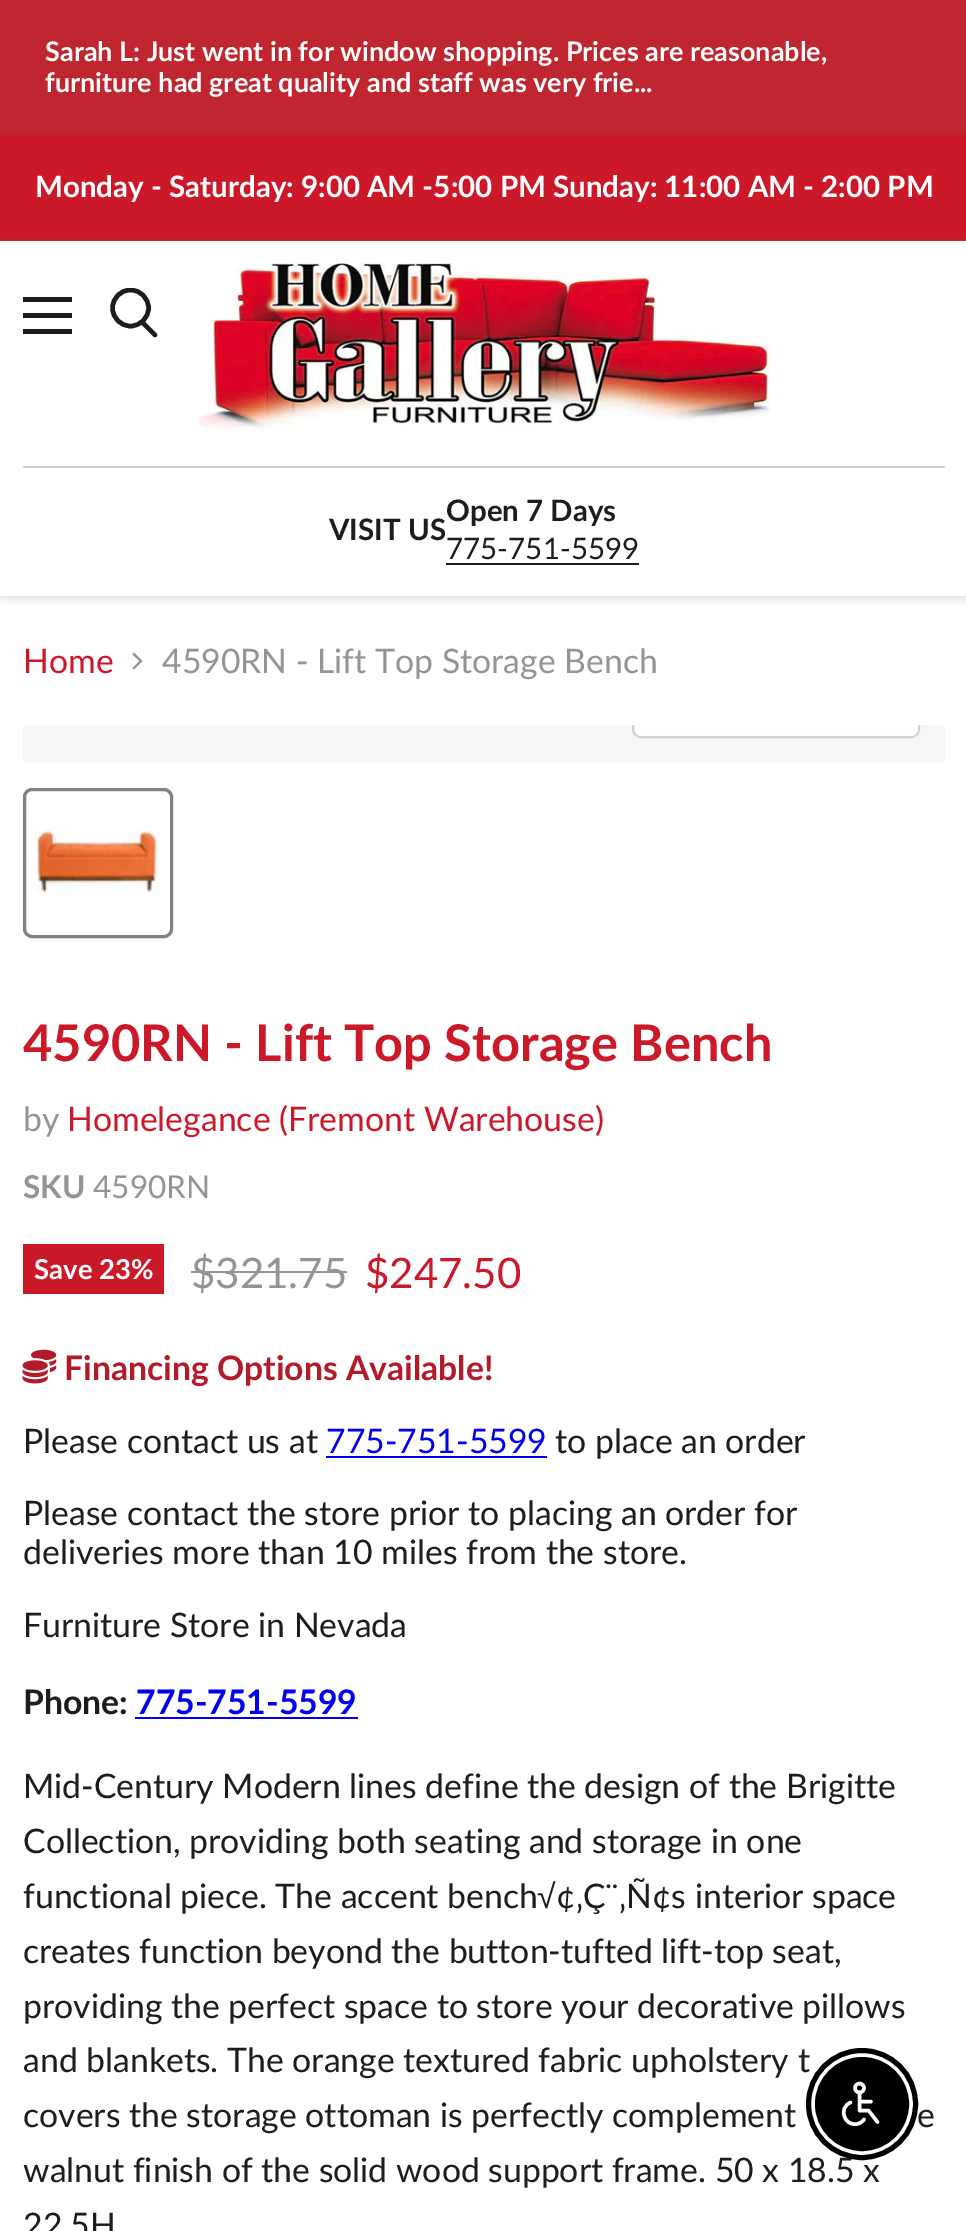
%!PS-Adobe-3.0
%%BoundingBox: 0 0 966 2231
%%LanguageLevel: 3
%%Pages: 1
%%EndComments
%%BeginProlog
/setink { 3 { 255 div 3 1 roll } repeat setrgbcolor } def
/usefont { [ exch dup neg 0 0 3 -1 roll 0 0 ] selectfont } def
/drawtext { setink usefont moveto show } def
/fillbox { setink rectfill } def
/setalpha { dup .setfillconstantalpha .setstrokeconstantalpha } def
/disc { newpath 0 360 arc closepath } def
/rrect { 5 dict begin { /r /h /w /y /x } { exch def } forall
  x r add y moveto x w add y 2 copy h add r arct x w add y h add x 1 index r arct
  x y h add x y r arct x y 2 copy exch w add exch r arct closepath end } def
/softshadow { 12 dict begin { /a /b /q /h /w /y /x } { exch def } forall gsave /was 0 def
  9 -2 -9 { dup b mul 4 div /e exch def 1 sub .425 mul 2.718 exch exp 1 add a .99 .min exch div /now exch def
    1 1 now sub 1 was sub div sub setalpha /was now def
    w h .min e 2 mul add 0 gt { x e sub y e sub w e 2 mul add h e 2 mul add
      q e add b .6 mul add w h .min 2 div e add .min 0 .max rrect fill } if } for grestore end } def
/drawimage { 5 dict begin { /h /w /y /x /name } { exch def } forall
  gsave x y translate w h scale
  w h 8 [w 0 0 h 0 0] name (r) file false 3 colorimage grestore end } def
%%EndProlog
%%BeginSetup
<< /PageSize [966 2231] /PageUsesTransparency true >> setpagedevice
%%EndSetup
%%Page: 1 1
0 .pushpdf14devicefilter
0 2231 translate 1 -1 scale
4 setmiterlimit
0 0 966 2231 255 255 255 fillbox
0 0 966 135 191 38 47 fillbox
(Sarah L: Just went in for window shopping. Prices are reasonable,) 45 61 /Lato-Bold 27 255 255 255 drawtext
(furniture had great quality and staff was very frie...) 45 92 /Lato-Bold 27 255 255 255 drawtext
0 135 966 106 203 25 42 fillbox
(Monday - Saturday: 9:00 AM -5:00 PM Sunday: 11:00 AM - 2:00 PM) 35 197 /Lato-Bold 29.5 255 255 255 drawtext
gsave
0 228 moveto 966 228 lineto 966 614 lineto 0 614 lineto closepath 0 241 moveto 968 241 lineto 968 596 lineto 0 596 lineto closepath eoclip newpath
128 128 128 setink
0 243 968 356 0 4.5 0.25 softshadow
grestore
23 297 49 5 29 29 29 fillbox
23 313 49 5 29 29 29 fillbox
23 329 49 5 29 29 29 fillbox
4.5 setlinewidth
1 setlinecap
155 335 moveto 143 323 lineto stroke
gsave
108 288 52 54 rectclip
0 setlinecap
130.5 308 18 disc stroke
grestore
(assets/img1.rgb) 197 263 575 168 drawimage
23 466 922 2 210 210 210 fillbox
(VISIT US) 329 540 /Lato-Bold 29.5 29 29 29 drawtext
(Open 7 Days) 446 521 /Lato-Bold 29.5 29 29 29 drawtext
(775-751-5599) 446 559 /Lato-Regular 29.5 29 29 29 drawtext
446 563 193 2 29 29 29 fillbox
(Home) 23 673 /Lato-Regular 33.75 203 25 42 drawtext
148 148 148 setink
132.5 668 moveto 134 669.5 lineto 142.5 661 lineto 134 652.5 lineto 132.5 654.5 lineto 139.5 661 lineto closepath eofill
(4590RN - Lift Top Storage Bench) 162 673 /Lato-Regular 33.75 148 148 148 drawtext
23 725 922 38 246 246 246 fillbox
gsave
23 725 922 38 rectclip
209 209 209 setink
2 setlinewidth
0 setlinecap
633 674 286 63 8 rrect stroke
grestore
0.9 setalpha
255 255 255 setink
635 725 moveto 918 725 lineto 918 729 lineto 918 733 915 736 911 736 curveto 642 736 lineto 638 736 635 733 635 729 curveto closepath fill
1 setalpha
129 129 129 setink
3 setlinewidth
0 setlinecap
24.5 789.5 147 147 7.5 rrect stroke
(assets/img2.rgb) 29 823 130 72 drawimage
(4590RN - Lift Top Storage Bench) 23 1061 /Lato-Bold 50.6 203 25 42 drawtext
(by) 23 1131 /Lato-Regular 33.75 148 148 148 drawtext
(Homelegance \(Fremont Warehouse\)) 67 1131 /Lato-Regular 33.75 203 25 42 drawtext
(SKU) 23 1198 /Lato-Bold 31.5 148 148 148 drawtext
(4590RN) 93 1198 /Lato-Regular 31.5 148 148 148 drawtext
23 1244 141 50 203 25 42 fillbox
(Save 23%) 34 1279 /Lato-Bold 27.5 255 255 255 drawtext
($321.75) 191 1288 /Lato-Regular 42 148 148 148 drawtext
191 1271 156 2 148 148 148 fillbox
($247.50) 365 1288 /Lato-Regular 42 203 25 42 drawtext
(assets/img3.rgb) 22 1349 35 35 drawimage
(Financing Options Available!) 64 1380 /Lato-Bold 33.75 177 27 42 drawtext
(Please contact us at) 23 1453 /Lato-Regular 33.75 29 29 29 drawtext
(775-751-5599) 326 1453 /Lato-Regular 33.75 0 0 238 drawtext
326 1456 221 2 0 0 238 fillbox
(to place an order) 555 1453 /Lato-Regular 33.75 29 29 29 drawtext
(Please contact the store prior to placing an order for) 23 1525 /Lato-Regular 33.75 29 29 29 drawtext
(deliveries more than 10 miles from the store.) 23 1564 /Lato-Regular 33.75 29 29 29 drawtext
(Furniture Store in Nevada) 23 1637 /Lato-Regular 33.75 29 29 29 drawtext
(Phone:) 23 1714 /Lato-Bold 33.75 29 29 29 drawtext
(775-751-5599) 136 1714 /Lato-Bold 33.75 0 0 238 drawtext
135 1717 223 2 0 0 238 fillbox
(Mid-Century Modern lines define the design of the Brigitte) 23 1798 /Lato-Regular 33.75 29 29 29 drawtext
(Collection, providing both seating and storage in one) 23 1853 /Lato-Regular 33.75 29 29 29 drawtext
(functional piece. The accent bench) 23 1908 /Lato-Regular 33.75 29 29 29 drawtext
(√) 537 1908 /LiberationSans-Regular 33.75 29 29 29 drawtext
(¢‚Ç¨‚Ñ¢s interior space) 556 1908 /Lato-Regular 33.75 29 29 29 drawtext
(creates function beyond the button-tufted lift-top seat,) 23 1963 /Lato-Regular 33.75 29 29 29 drawtext
(providing the perfect space to store your decorative pillows) 23 2018 /Lato-Regular 33.75 29 29 29 drawtext
(and blankets. The orange textured fabric upholstery t) 23 2072 /Lato-Regular 33.75 29 29 29 drawtext
(covers the storage ottoman is perfectly complement) 23 2127 /Lato-Regular 33.75 29 29 29 drawtext
(e) 917 2127 /Lato-Regular 33.75 29 29 29 drawtext
(walnut finish of the solid wood support frame. 50 x 18.5 x) 23 2182 /Lato-Regular 33.75 29 29 29 drawtext
(22.5H) 23 2237 /Lato-Regular 33.75 29 29 29 drawtext
0 0 0 setink
5 setlinewidth
862 2104 53.5 disc stroke
862 2104 46 disc gsave fill grestore
2 setlinewidth
stroke
255 255 255 setink
3.4 setlinewidth
859.5 2088 4.5 disc stroke
1 setlinecap
1 setlinejoin
859.5 2092.5 moveto 859.5 2110.5 lineto 868.5 2110.5 lineto 877.5 2122 lineto 859.5 2101.5 moveto 871 2101.5 lineto 850.5 2102.5 moveto 838 2107.5 844 2126.5 857 2124 curveto 859.5 2123.5 862.5 2122 864 2119.5 curveto stroke
.poppdf14devicefilter showpage
%%EOF
